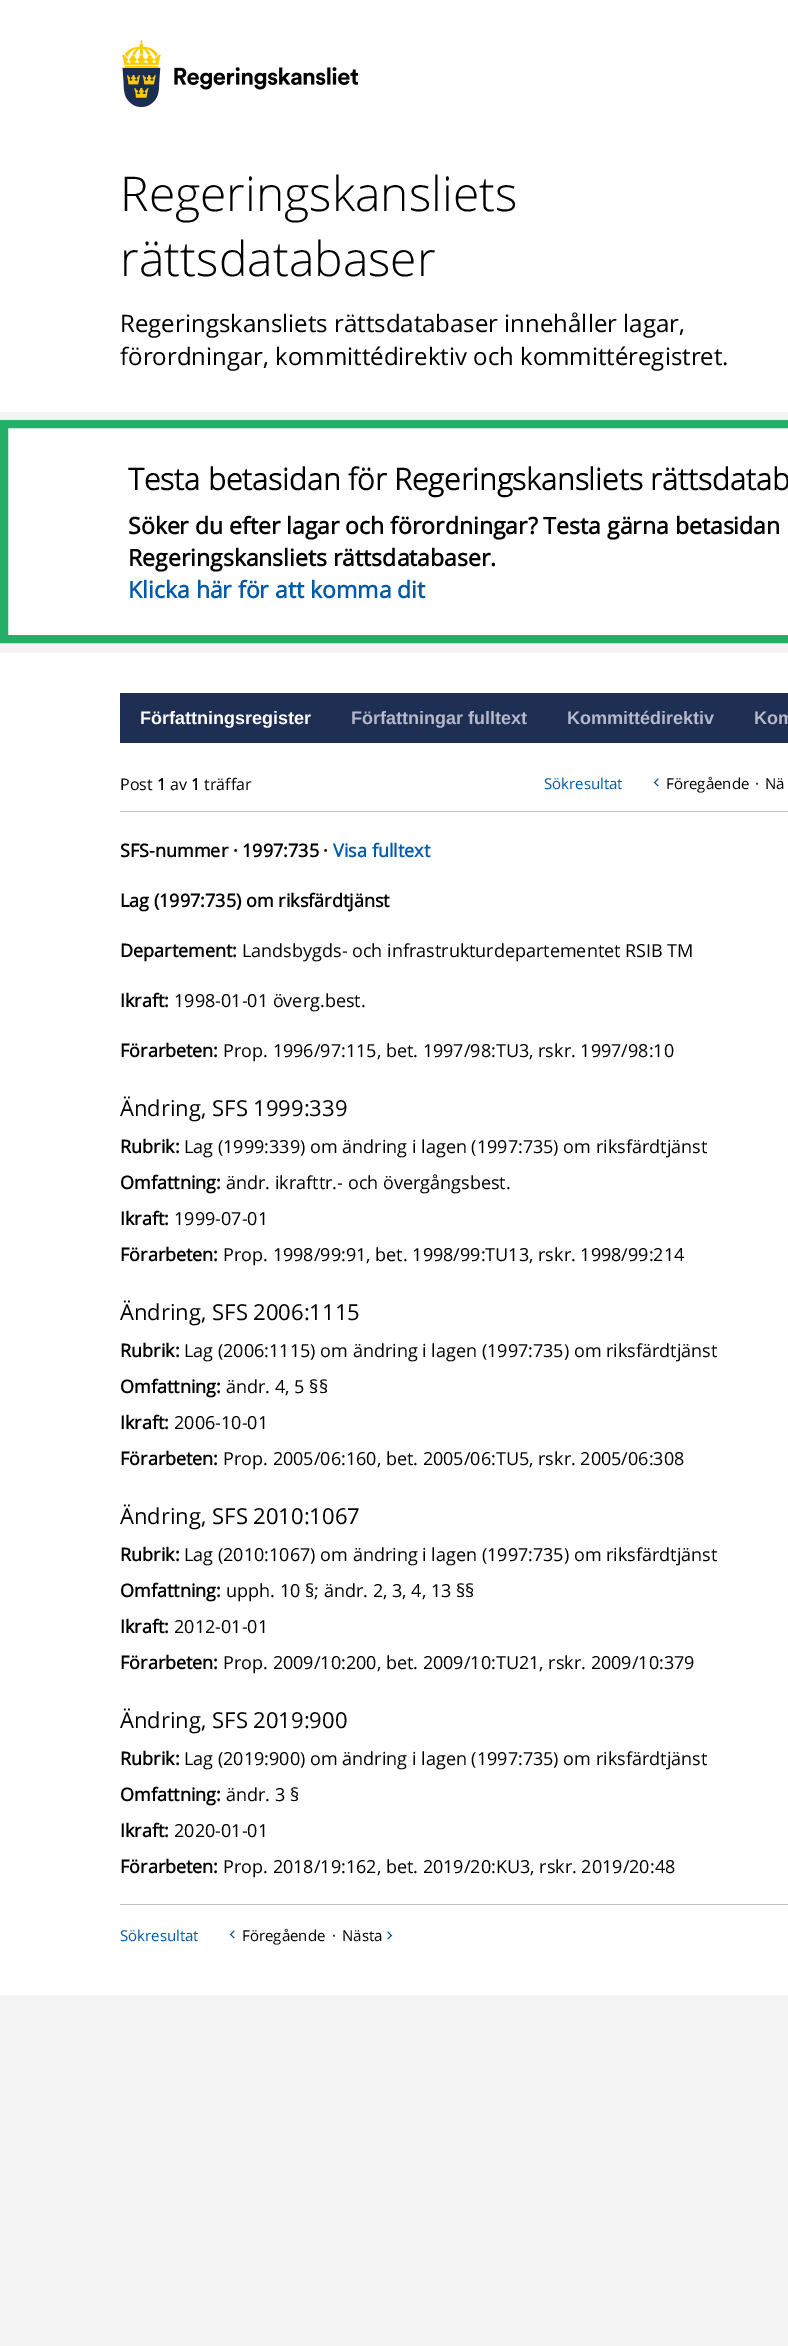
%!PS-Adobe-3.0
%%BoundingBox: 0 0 788 2346
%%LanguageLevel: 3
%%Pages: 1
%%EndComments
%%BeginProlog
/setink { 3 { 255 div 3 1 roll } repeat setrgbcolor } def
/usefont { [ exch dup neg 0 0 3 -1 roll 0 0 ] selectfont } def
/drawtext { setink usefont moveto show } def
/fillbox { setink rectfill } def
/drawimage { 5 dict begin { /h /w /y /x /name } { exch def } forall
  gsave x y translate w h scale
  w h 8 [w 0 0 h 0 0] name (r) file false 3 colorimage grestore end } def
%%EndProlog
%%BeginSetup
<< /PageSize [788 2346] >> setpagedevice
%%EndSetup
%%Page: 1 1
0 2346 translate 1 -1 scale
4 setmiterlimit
0 0 788 2346 243 243 243 fillbox
0 0 788 412 255 255 255 fillbox
(assets/img1.rgb) 122 40 236 67 drawimage
(Regeringskansliets) 120 211 /OpenSans-Light 48 0 0 0 drawtext
(rättsdatabaser) 120 276 /OpenSans-Light 48 0 0 0 drawtext
(Regeringskansliets rättsdatabaser innehåller lagar,) 120 332 /OpenSans-Regular 24 0 0 0 drawtext
(förordningar, kommittédirektiv och kommittéregistret.) 120 365 /OpenSans-Regular 24 0 0 0 drawtext
255 255 255 setink
4 424 moveto 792 424 lineto 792 639 lineto 4 639 lineto closepath gsave fill grestore
37 174 104 setink
8 setlinewidth
stroke
(Testa betasidan för Regeringskansliets rättsdatab) 128 490 /OpenSans-Bold 30 0 0 0 drawtext
(Söker du efter lagar och förordningar? Testa gärna betasidan) 128 534 /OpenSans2-Bold 23 0 0 0 drawtext
(Regeringskansliets rättsdatabaser.) 128 566 /OpenSans2-Bold 23 0 0 0 drawtext
(Klicka här för att komma dit) 128 598 /OpenSans2-Bold 23 1 91 169 drawtext
0 653 788 1342 255 255 255 fillbox
120 693 668 50 31 47 83 fillbox
(Författningsregister) 140 724 /LiberationSans-Bold 18 255 255 255 drawtext
(Författningar fulltext) 351 724 /LiberationSans-Bold 18 182 185 202 drawtext
(Kommittédirektiv) 567 724 /LiberationSans-Bold 18 182 185 202 drawtext
(Kom) 754 724 /LiberationSans-Bold 18 182 185 202 drawtext
120 811 668 1 191 191 191 fillbox
(Post) 120 790 /OpenSans-Regular 16 0 0 0 drawtext
(1) 157 790 /OpenSans2-Bold 16 0 0 0 drawtext
(av) 170 790 /OpenSans-Regular 16 0 0 0 drawtext
(1) 191 790 /OpenSans2-Bold 16 0 0 0 drawtext
(träffar) 204 790 /OpenSans-Regular 16 0 0 0 drawtext
(Sökresultat) 544 789 /OpenSans-Regular 15 1 91 169 drawtext
(assets/img2.rgb) 653 778 6 9 drawimage
(Föregående) 666 789 /OpenSans-Regular 15 0 0 0 drawtext
(·) 755 789 /OpenSans-Regular 15 0 0 0 drawtext
(Nä) 765 789 /OpenSans-Regular 15 0 0 0 drawtext
(SFS-nummer · 1997:735 ·) 120 857 /OpenSans2-Bold 18 0 0 0 drawtext
(Visa fulltext) 333 857 /OpenSans2-Bold 18 1 91 169 drawtext
(Lag \(1997:735\) om riksfärdtjänst) 120 907 /OpenSans2-Bold 18 0 0 0 drawtext
(Departement:) 120 957 /OpenSans2-Bold 18 0 0 0 drawtext
(Landsbygds- och infrastrukturdepartementet RSIB TM) 242 957 /OpenSans-Regular 18 0 0 0 drawtext
(Ikraft:) 120 1007 /OpenSans2-Bold 18 0 0 0 drawtext
(1998-01-01 överg.best.) 174 1007 /OpenSans-Regular 18 0 0 0 drawtext
(Förarbeten:) 120 1057 /OpenSans2-Bold 18 0 0 0 drawtext
(Prop. 1996/97:115, bet. 1997/98:TU3, rskr. 1997/98:10) 223 1057 /OpenSans-Regular 18 0 0 0 drawtext
(Ändring, SFS 1999:339) 120 1116 /OpenSans-Regular 22 0 0 0 drawtext
(Rubrik:) 120 1153 /OpenSans2-Bold 18 0 0 0 drawtext
(Lag \(1999:339\) om ändring i lagen \(1997:735\) om riksfärdtjänst) 184 1153 /OpenSans-Regular 18 0 0 0 drawtext
(Omfattning:) 120 1189 /OpenSans2-Bold 18 0 0 0 drawtext
(ändr. ikrafttr.- och övergångsbest.) 226 1189 /OpenSans-Regular 18 0 0 0 drawtext
(Ikraft:) 120 1225 /OpenSans2-Bold 18 0 0 0 drawtext
(1999-07-01) 174 1225 /OpenSans-Regular 18 0 0 0 drawtext
(Förarbeten:) 120 1261 /OpenSans2-Bold 18 0 0 0 drawtext
(Prop. 1998/99:91, bet. 1998/99:TU13, rskr. 1998/99:214) 223 1261 /OpenSans-Regular 18 0 0 0 drawtext
(Ändring, SFS 2006:1115) 120 1320 /OpenSans-Regular 22 0 0 0 drawtext
(Rubrik:) 120 1357 /OpenSans2-Bold 18 0 0 0 drawtext
(Lag \(2006:1115\) om ändring i lagen \(1997:735\) om riksfärdtjänst) 184 1357 /OpenSans-Regular 18 0 0 0 drawtext
(Omfattning:) 120 1393 /OpenSans2-Bold 18 0 0 0 drawtext
(ändr. 4, 5 §§) 226 1393 /OpenSans-Regular 18 0 0 0 drawtext
(Ikraft:) 120 1429 /OpenSans2-Bold 18 0 0 0 drawtext
(2006-10-01) 174 1429 /OpenSans-Regular 18 0 0 0 drawtext
(Förarbeten:) 120 1465 /OpenSans2-Bold 18 0 0 0 drawtext
(Prop. 2005/06:160, bet. 2005/06:TU5, rskr. 2005/06:308) 223 1465 /OpenSans-Regular 18 0 0 0 drawtext
(Ändring, SFS 2010:1067) 120 1524 /OpenSans-Regular 22 0 0 0 drawtext
(Rubrik:) 120 1561 /OpenSans2-Bold 18 0 0 0 drawtext
(Lag \(2010:1067\) om ändring i lagen \(1997:735\) om riksfärdtjänst) 184 1561 /OpenSans-Regular 18 0 0 0 drawtext
(Omfattning:) 120 1597 /OpenSans2-Bold 18 0 0 0 drawtext
(upph. 10 §; ändr. 2, 3, 4, 13 §§) 226 1597 /OpenSans-Regular 18 0 0 0 drawtext
(Ikraft:) 120 1633 /OpenSans2-Bold 18 0 0 0 drawtext
(2012-01-01) 174 1633 /OpenSans-Regular 18 0 0 0 drawtext
(Förarbeten:) 120 1669 /OpenSans2-Bold 18 0 0 0 drawtext
(Prop. 2009/10:200, bet. 2009/10:TU21, rskr. 2009/10:379) 223 1669 /OpenSans-Regular 18 0 0 0 drawtext
(Ändring, SFS 2019:900) 120 1728 /OpenSans-Regular 22 0 0 0 drawtext
(Rubrik:) 120 1765 /OpenSans2-Bold 18 0 0 0 drawtext
(Lag \(2019:900\) om ändring i lagen \(1997:735\) om riksfärdtjänst) 184 1765 /OpenSans-Regular 18 0 0 0 drawtext
(Omfattning:) 120 1801 /OpenSans2-Bold 18 0 0 0 drawtext
(ändr. 3 §) 226 1801 /OpenSans-Regular 18 0 0 0 drawtext
(Ikraft:) 120 1837 /OpenSans2-Bold 18 0 0 0 drawtext
(2020-01-01) 174 1837 /OpenSans-Regular 18 0 0 0 drawtext
(Förarbeten:) 120 1873 /OpenSans2-Bold 18 0 0 0 drawtext
(Prop. 2018/19:162, bet. 2019/20:KU3, rskr. 2019/20:48) 223 1873 /OpenSans-Regular 18 0 0 0 drawtext
120 1904 668 1 191 191 191 fillbox
(Sökresultat) 120 1941 /OpenSans-Regular 15 1 91 169 drawtext
(assets/img2.rgb) 229 1930 6 9 drawimage
(Föregående) 242 1941 /OpenSans-Regular 15 0 0 0 drawtext
(·) 332 1941 /OpenSans-Regular 15 0 0 0 drawtext
(Nästa) 342 1941 /OpenSans-Regular 15 0 0 0 drawtext
(assets/img3.rgb) 387 1931 6 9 drawimage
showpage
%%EOF
